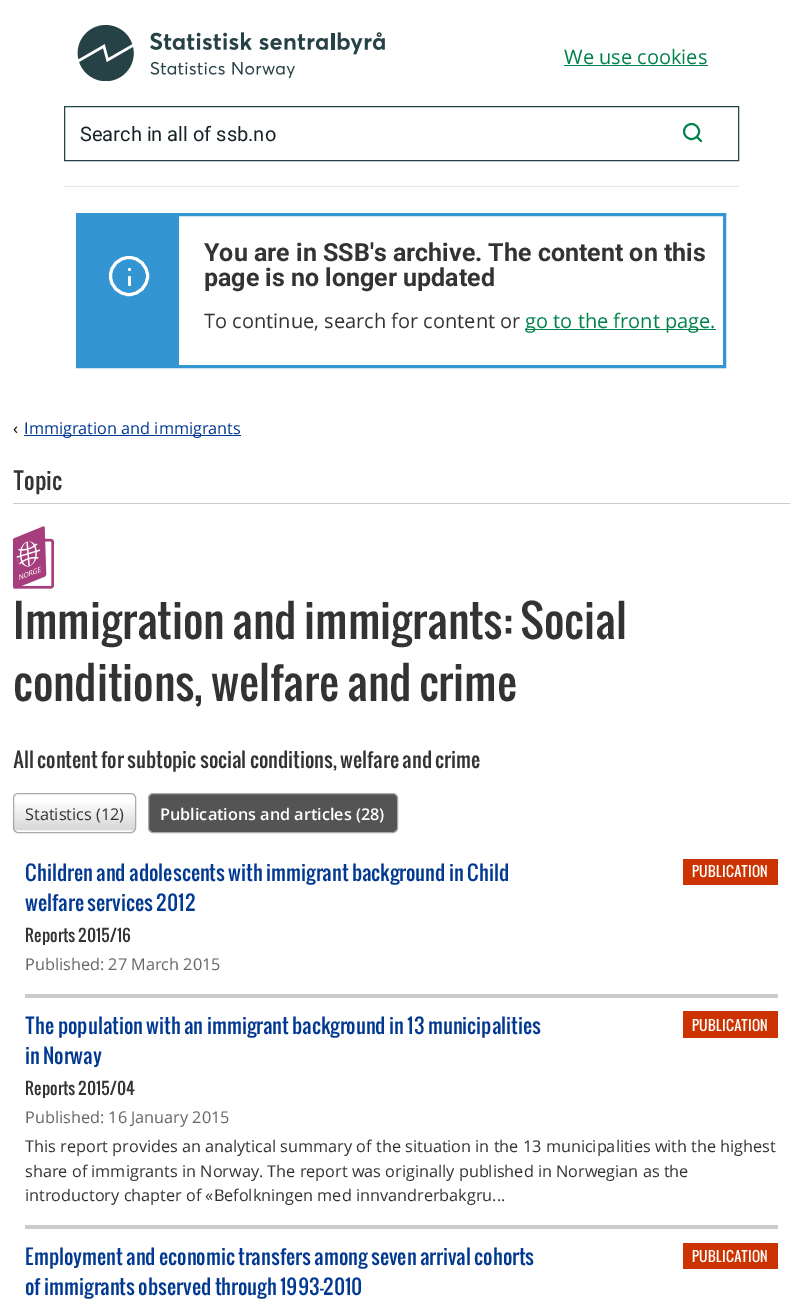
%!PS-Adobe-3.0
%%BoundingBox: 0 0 802 1301
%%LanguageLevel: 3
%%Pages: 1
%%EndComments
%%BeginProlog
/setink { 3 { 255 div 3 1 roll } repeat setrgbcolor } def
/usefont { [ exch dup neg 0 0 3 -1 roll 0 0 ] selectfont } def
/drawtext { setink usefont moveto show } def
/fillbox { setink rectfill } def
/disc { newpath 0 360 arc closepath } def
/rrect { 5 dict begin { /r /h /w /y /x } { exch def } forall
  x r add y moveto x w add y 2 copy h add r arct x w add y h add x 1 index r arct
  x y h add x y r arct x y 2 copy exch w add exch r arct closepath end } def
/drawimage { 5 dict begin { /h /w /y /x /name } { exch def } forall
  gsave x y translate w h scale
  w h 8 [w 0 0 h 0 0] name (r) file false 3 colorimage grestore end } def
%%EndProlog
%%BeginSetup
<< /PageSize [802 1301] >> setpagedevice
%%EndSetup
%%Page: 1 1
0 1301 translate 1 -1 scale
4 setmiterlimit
0 0 802 1301 255 255 255 fillbox
(assets/img1.rgb) 77 25 308 56 drawimage
(We use cookies) 564 64 /OpenSans-Regular 20 0 130 77 drawtext
564 65 144 1 0 130 77 fillbox
39 66 71 setink
64.5 106.5 674 54 rectstroke
(Search in all of ssb.no) 80 141 /Roboto-Regular 20 22 35 39 drawtext
0 130 77 setink
1.9 setlinewidth
691.5 131.5 7.5 disc stroke
1 setlinecap
1 setlinejoin
701 141 moveto 697 137 lineto stroke
64 186 675 1 230 230 230 fillbox
51 150 210 setink
3 setlinewidth
0 setlinecap
0 setlinejoin
77.5 214.5 647 152 rectstroke
79 216 100 149 51 150 210 fillbox
255 255 255 setink
129 276 18.5 disc stroke
129.5 269.5 1.5 disc fill
128 276 3 10 1.5 rrect fill
(You are in SSB's archive. The content on this) 204 261 /Roboto-Bold 25 51 51 51 drawtext
(page is no longer updated) 204 286 /Roboto-Bold 25 51 51 51 drawtext
(To continue, search for content or) 204 328 /OpenSans-Regular 20 51 51 51 drawtext
525 329 191 1 0 130 77 fillbox
(go to the front page.) 525 328 /OpenSans-Regular 20 0 130 77 drawtext
(‹) 13 434 /OpenSans-Regular 16.25 0 0 0 drawtext
24 435 217 1 0 56 146 fillbox
(Immigration and immigrants) 24 434 /OpenSans-Regular 16.25 0 56 146 drawtext
13 503 777 1 204 204 204 fillbox
(Topic) 13 490 /Oswald-Regular 22.5 51 51 51 drawtext
(assets/img2.rgb) 13 526 41 63 drawimage
(Immigration and immigrants: Social) 13 639 /Oswald-Regular 43.75 51 51 51 drawtext
(conditions, welfare and crime) 13 701 /Oswald-Regular 43.75 51 51 51 drawtext
(All content for subtopic social conditions, welfare and crime) 13 768 /Oswald-Regular 20 51 51 51 drawtext
(assets/img3.rgb) 12 803 124 28 drawimage
170 170 170 setink
1 setlinewidth
13.5 793.5 122 39 4.5 rrect stroke
(Statistics \(12\)) 25 820 /OpenSans-Regular 16.25 51 51 51 drawtext
84 84 84 setink
148.5 793.5 249 39 4.5 rrect gsave fill grestore
170 170 170 setink
stroke
(Publications and articles \(28\)) 160 820 /OpenSans-SemiBold 16.25 255 255 255 drawtext
25 994 753 4 204 204 204 fillbox
(Children and adolescents with immigrant background in Child) 25 881 /Oswald-Regular 20 0 56 146 drawtext
(welfare services 2012) 25 911 /Oswald-Regular 20 0 56 146 drawtext
683 859 95 26 204 51 0 fillbox
(PUBLICATION) 692 877 /Oswald-Regular 13.75 255 255 255 drawtext
(Reports 2015/16) 25 942 /Oswald-Regular 16.25 51 51 51 drawtext
(Published: 27 March 2015) 25 970 /OpenSans-Regular 16.25 102 102 102 drawtext
25 1225 753 4 204 204 204 fillbox
(The population with an immigrant background in 13 municipalities) 25 1034 /Oswald-Regular 20 0 56 146 drawtext
(in Norway) 25 1064 /Oswald-Regular 20 0 56 146 drawtext
683 1011 95 27 204 51 0 fillbox
(PUBLICATION) 692 1031 /Oswald-Regular 13.75 255 255 255 drawtext
(Reports 2015/04) 25 1095 /Oswald-Regular 16.25 51 51 51 drawtext
(Published: 16 January 2015) 25 1123 /OpenSans-Regular 16.25 102 102 102 drawtext
(This report provides an analytical summary of the situation in the 13 municipalities with the highest) 25 1152 /OpenSans-Regular 16.25 51 51 51 drawtext
(share of immigrants in Norway. The report was originally published in Norwegian as the) 25 1177 /OpenSans-Regular 16.25 51 51 51 drawtext
(introductory chapter of «Befolkningen med innvandrerbakgru...) 25 1201 /OpenSans-Regular 16.25 51 51 51 drawtext
(Employment and economic transfers among seven arrival cohorts) 25 1265 /Oswald-Regular 20 0 56 146 drawtext
(of immigrants observed through 1993-2010) 25 1295 /Oswald-Regular 20 0 56 146 drawtext
683 1243 95 26 204 51 0 fillbox
(PUBLICATION) 692 1262 /Oswald-Regular 13.75 255 255 255 drawtext
showpage
%%EOF
